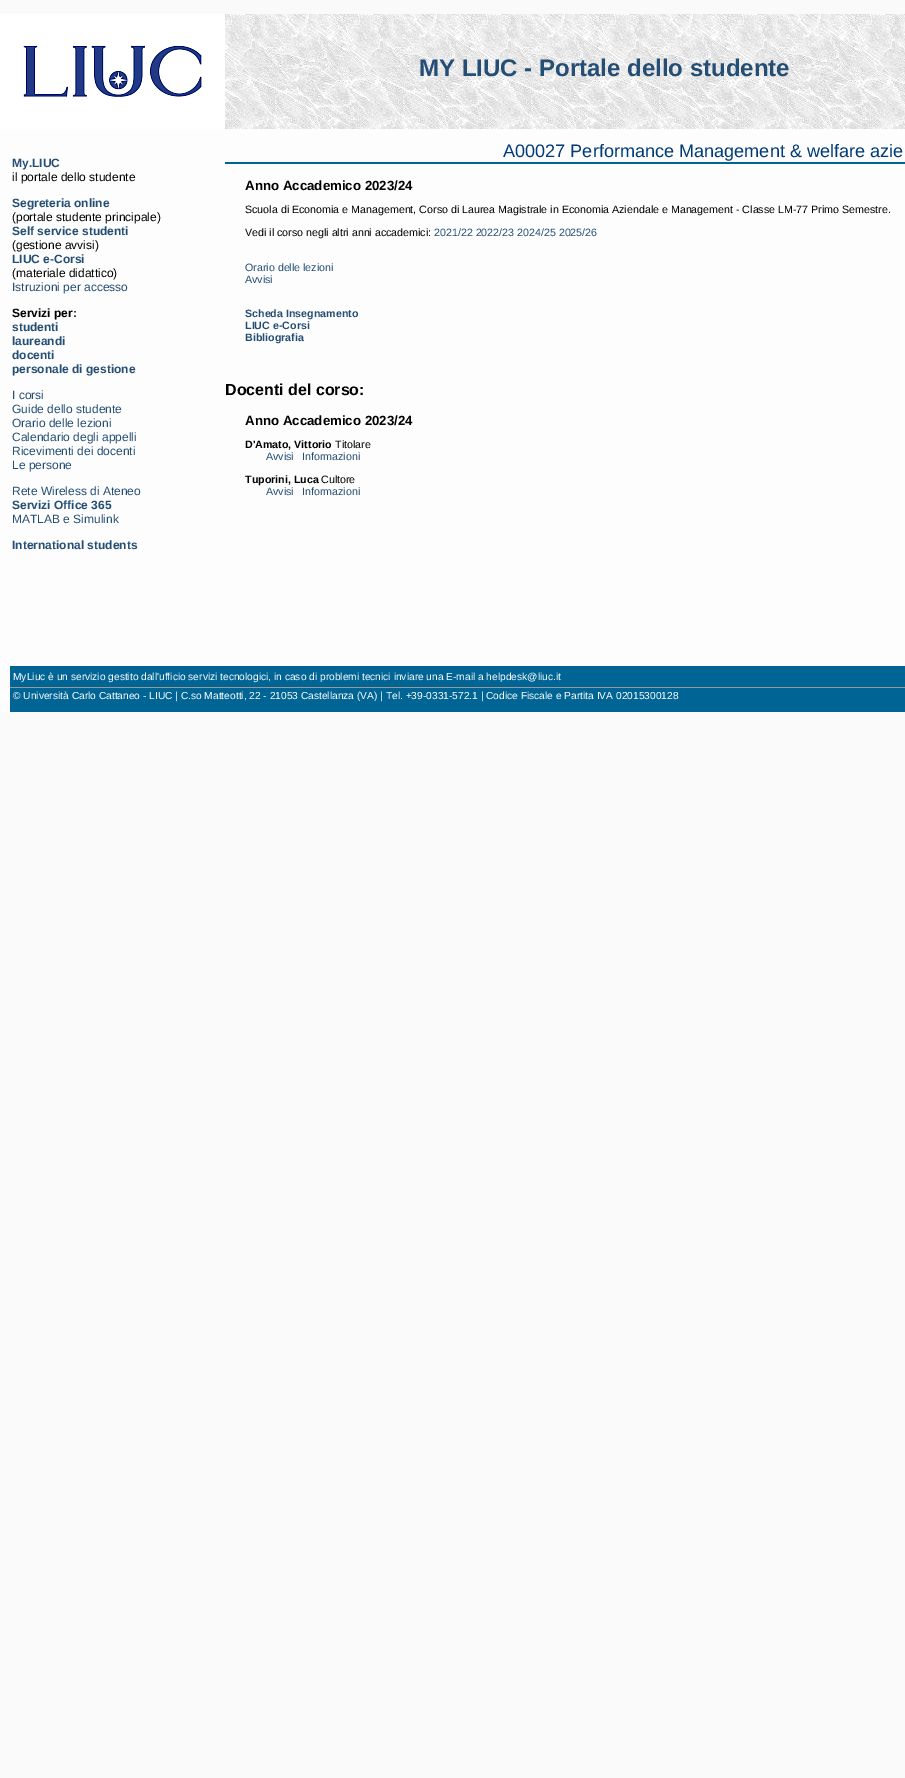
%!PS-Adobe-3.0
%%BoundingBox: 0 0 905 1778
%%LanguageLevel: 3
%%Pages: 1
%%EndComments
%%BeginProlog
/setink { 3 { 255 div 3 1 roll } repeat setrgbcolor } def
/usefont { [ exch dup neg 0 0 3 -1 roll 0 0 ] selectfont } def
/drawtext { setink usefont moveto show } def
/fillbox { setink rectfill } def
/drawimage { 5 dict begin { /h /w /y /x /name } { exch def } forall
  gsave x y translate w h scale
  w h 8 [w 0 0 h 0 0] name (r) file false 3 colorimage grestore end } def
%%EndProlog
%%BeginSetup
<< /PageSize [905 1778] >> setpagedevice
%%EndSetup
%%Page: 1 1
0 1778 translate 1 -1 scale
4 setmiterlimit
0 0 905 1778 250 250 250 fillbox
0 129 905 583 253 253 253 fillbox
(assets/img1.rgb) 225 14 680 115 drawimage
(assets/img2.rgb) 0 14 225 115 drawimage
(MY LIUC - Portale dello studente) 419 76 /LiberationSans-Bold 24 37 78 117 drawtext
(My.LIUC) 12 167 /LiberationSans-Bold 12 37 78 117 drawtext
(il portale dello studente) 12 181 /LiberationSans-Regular 12 0 0 0 drawtext
(Segreteria online) 12 207 /LiberationSans-Bold 12 37 78 117 drawtext
(\(portale studente principale\)) 12 221 /LiberationSans-Regular 12 0 0 0 drawtext
(Self service studenti) 12 235 /LiberationSans-Bold 12 37 78 117 drawtext
(\(gestione avvisi\)) 12 249 /LiberationSans-Regular 12 0 0 0 drawtext
(LIUC e-Corsi) 12 263 /LiberationSans-Bold 12 37 78 117 drawtext
(\(materiale didattico\)) 12 277 /LiberationSans-Regular 12 0 0 0 drawtext
(Istruzioni per accesso) 12 291 /LiberationSans-Regular 12 37 78 117 drawtext
(Servizi per:) 12 317 /LiberationSans-Bold 12 0 0 0 drawtext
(studenti) 12 331 /LiberationSans-Bold 12 37 78 117 drawtext
(laureandi) 12 345 /LiberationSans-Bold 12 37 78 117 drawtext
(docenti) 12 359 /LiberationSans-Bold 12 37 78 117 drawtext
(personale di gestione) 12 373 /LiberationSans-Bold 12 37 78 117 drawtext
(I corsi) 12 399 /LiberationSans-Regular 12 37 78 117 drawtext
(Guide dello studente) 12 413 /LiberationSans-Regular 12 37 78 117 drawtext
(Orario delle lezioni) 12 427 /LiberationSans-Regular 12 37 78 117 drawtext
(Calendario degli appelli) 12 441 /LiberationSans-Regular 12 37 78 117 drawtext
(Ricevimenti dei docenti) 12 455 /LiberationSans-Regular 12 37 78 117 drawtext
(Le persone) 12 469 /LiberationSans-Regular 12 37 78 117 drawtext
(Rete Wireless di Ateneo) 12 495 /LiberationSans-Regular 12 37 78 117 drawtext
(Servizi Office 365) 12 509 /LiberationSans-Bold 12 37 78 117 drawtext
(MATLAB e Simulink) 12 523 /LiberationSans-Regular 12 37 78 117 drawtext
(International students) 12 549 /LiberationSans-Bold 12 37 78 117 drawtext
225 162 680 2 0 100 149 fillbox
(A00027 Performance Management & welfare azie) 503 157 /LiberationSans-Regular 18.1 0 60 122 drawtext
(Anno Accademico 2023/24) 245 190 /LiberationSans-Bold 13.3 0 0 0 drawtext
(Scuola di Economia e Management, Corso di Laurea Magistrale in Economia Aziendale e Management - Classe LM-77 Primo Semestre.) 245 213 /LiberationSans-Regular 10.67 0 0 0 drawtext
(Vedi il corso negli altri anni accademici:) 245 236 /LiberationSans-Regular 10.67 0 0 0 drawtext
(2021/22 2022/23 2024/25 2025/26) 434 236 /LiberationSans-Regular 10.67 37 78 117 drawtext
(Orario delle lezioni) 245 271 /LiberationSans-Regular 10.67 37 78 117 drawtext
(Avvisi) 245 283 /LiberationSans-Regular 10.67 37 78 117 drawtext
(Scheda Insegnamento) 245 317 /LiberationSans-Bold 10.67 37 78 117 drawtext
(LIUC e-Corsi) 245 329 /LiberationSans-Bold 10.67 37 78 117 drawtext
(Bibliografia) 245 341 /LiberationSans-Bold 10.67 37 78 117 drawtext
(Docenti del corso:) 225 395 /LiberationSans-Bold 16 0 0 0 drawtext
(Anno Accademico 2023/24) 245 425 /LiberationSans-Bold 13.3 0 0 0 drawtext
(D'Amato, Vittorio) 245 448 /LiberationSans-Bold 10.67 0 0 0 drawtext
(Titolare) 335 448 /LiberationSans-Regular 10.67 0 0 0 drawtext
(Avvisi) 266 460 /LiberationSans-Regular 10.67 37 78 117 drawtext
(Informazioni) 302 460 /LiberationSans-Regular 10.67 37 78 117 drawtext
(Tuporini, Luca) 245 483 /LiberationSans-Bold 10.67 0 0 0 drawtext
(Cultore) 321 483 /LiberationSans-Regular 10.67 0 0 0 drawtext
(Avvisi) 266 495 /LiberationSans-Regular 10.67 37 78 117 drawtext
(Informazioni) 302 495 /LiberationSans-Regular 10.67 37 78 117 drawtext
10 666 895 46 0 100 149 fillbox
(MyLiuc è un servizio gestito dall'ufficio servizi tecnologici, in caso di problemi tecnici inviare una E-mail a helpdesk@liuc.it) 13 680 /LiberationSans-Regular 10.2 255 255 255 drawtext
10 687 895 1 153 153 153 fillbox
(© Università Carlo Cattaneo - LIUC | C.so Matteotti, 22 - 21053 Castellanza \(VA\) | Tel. +39-0331-572.1 | Codice Fiscale e Partita IVA 02015300128) 13 699 /LiberationSans-Regular 10.2 255 255 255 drawtext
showpage
%%EOF
